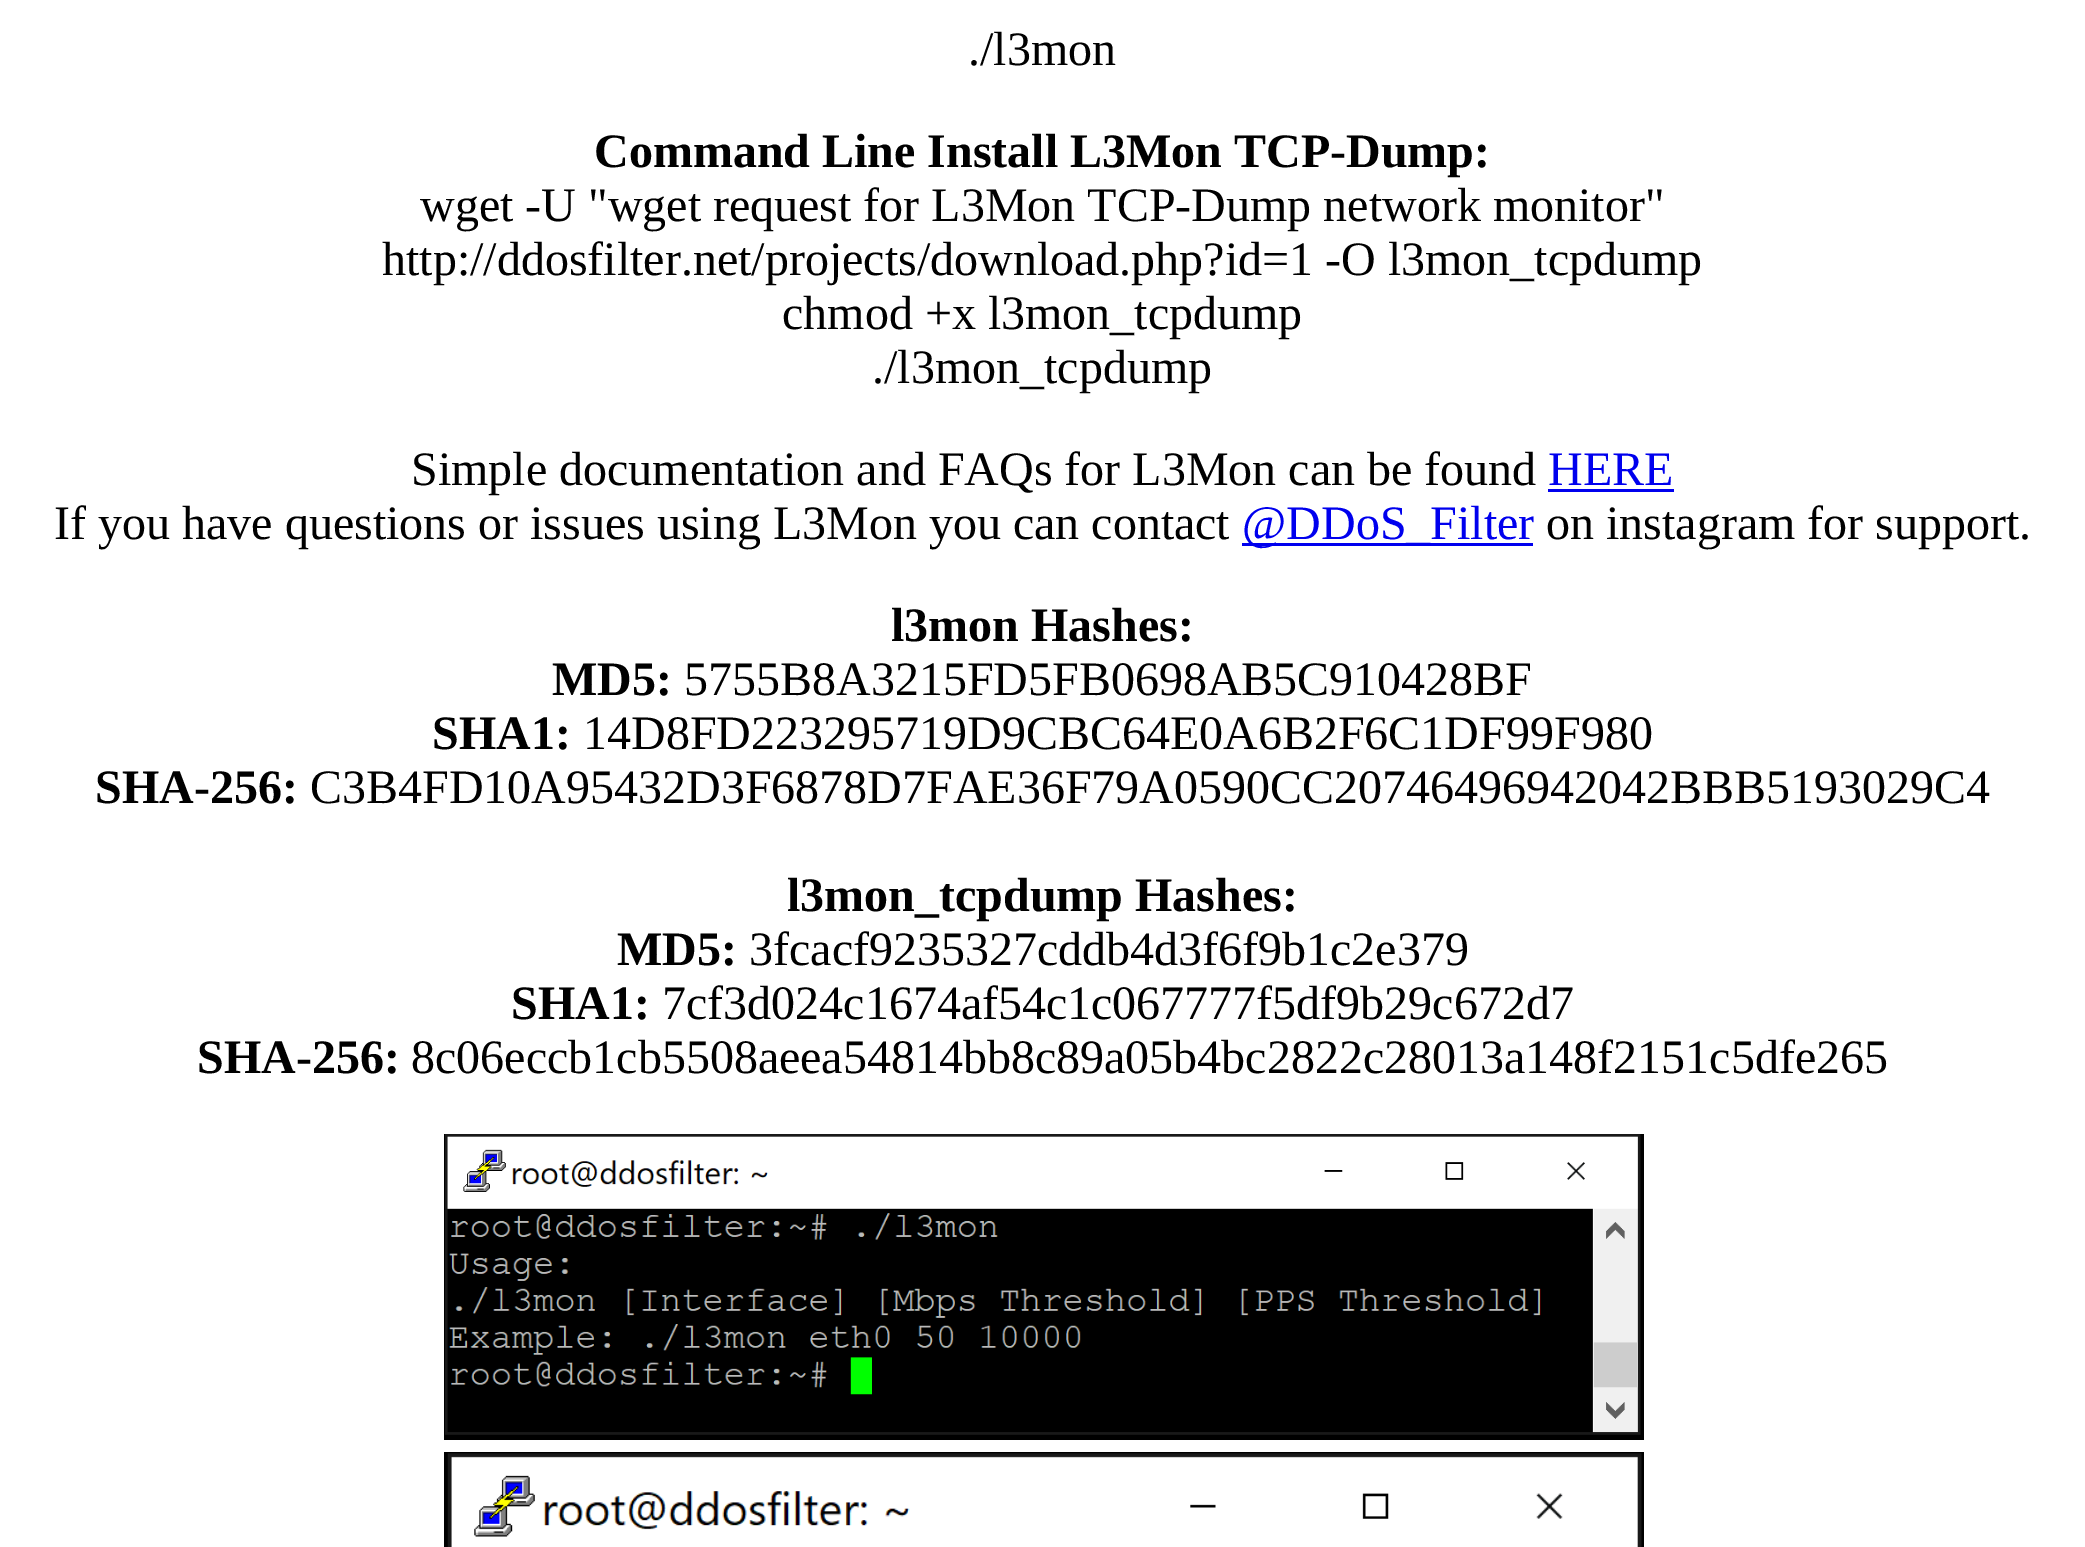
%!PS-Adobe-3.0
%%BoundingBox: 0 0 2085 1547
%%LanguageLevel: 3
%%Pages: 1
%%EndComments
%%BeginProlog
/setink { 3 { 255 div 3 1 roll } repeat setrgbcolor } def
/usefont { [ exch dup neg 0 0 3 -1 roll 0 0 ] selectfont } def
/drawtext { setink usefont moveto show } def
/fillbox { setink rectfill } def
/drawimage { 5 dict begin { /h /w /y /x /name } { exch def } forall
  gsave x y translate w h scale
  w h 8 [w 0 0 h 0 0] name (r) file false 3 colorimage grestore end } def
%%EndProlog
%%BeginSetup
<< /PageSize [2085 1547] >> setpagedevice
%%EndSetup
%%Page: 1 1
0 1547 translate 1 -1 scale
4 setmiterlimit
0 0 2085 1547 255 255 255 fillbox
(./l3mon) 968 65 /LiberationSerif-Regular 48 0 0 0 drawtext
(Command Line Install L3Mon TCP-Dump:) 594 167 /LiberationSerif-Bold 48 0 0 0 drawtext
(wget -U "wget request for L3Mon TCP-Dump network monitor") 420 221 /LiberationSerif-Regular 48 0 0 0 drawtext
(http://ddosfilter.net/projects/download.php?id=1 -O l3mon_tcpdump) 382 275 /LiberationSerif-Regular 48 0 0 0 drawtext
(chmod +x l3mon_tcpdump) 782 329 /LiberationSerif-Regular 48 0 0 0 drawtext
(./l3mon_tcpdump) 872 383 /LiberationSerif-Regular 48 0 0 0 drawtext
(Simple documentation and FAQs for L3Mon can be found) 411 485 /LiberationSerif-Regular 48 0 0 0 drawtext
(HERE) 1548 485 /LiberationSerif-Regular 48 0 0 238 drawtext
1548 489 126 3 0 0 238 fillbox
(If you have questions or issues using L3Mon you can contact) 54 539 /LiberationSerif-Regular 48 0 0 0 drawtext
1242 543 291 3 0 0 238 fillbox
(@DDoS_Filter) 1242 539 /LiberationSerif-Regular 48 0 0 238 drawtext
(on instagram for support.) 1546 539 /LiberationSerif-Regular 48 0 0 0 drawtext
(l3mon Hashes:) 891 641 /LiberationSerif-Bold 48 0 0 0 drawtext
(MD5:) 552 695 /LiberationSerif-Bold 48 0 0 0 drawtext
(5755B8A3215FD5FB0698AB5C910428BF) 684 695 /LiberationSerif-Regular 48 0 0 0 drawtext
(SHA1:) 432 749 /LiberationSerif-Bold 48 0 0 0 drawtext
(14D8FD223295719D9CBC64E0A6B2F6C1DF99F980) 583 749 /LiberationSerif-Regular 48 0 0 0 drawtext
(SHA-256:) 95 803 /LiberationSerif-Bold 48 0 0 0 drawtext
(C3B4FD10A95432D3F6878D7FAE36F79A0590CC20746496942042BBB5193029C4) 310 803 /LiberationSerif-Regular 48 0 0 0 drawtext
(l3mon_tcpdump Hashes:) 787 911 /LiberationSerif-Bold 48 0 0 0 drawtext
(MD5:) 617 965 /LiberationSerif-Bold 48 0 0 0 drawtext
(3fcacf9235327cddb4d3f6f9b1c2e379) 749 965 /LiberationSerif-Regular 48 0 0 0 drawtext
(SHA1:) 511 1019 /LiberationSerif-Bold 48 0 0 0 drawtext
(7cf3d024c1674af54c1c067777f5df9b29c672d7) 662 1019 /LiberationSerif-Regular 48 0 0 0 drawtext
(SHA-256:) 197 1073 /LiberationSerif-Bold 48 0 0 0 drawtext
(8c06eccb1cb5508aeea54814bb8c89a05b4bc2822c28013a148f2151c5dfe265) 411 1073 /LiberationSerif-Regular 48 0 0 0 drawtext
(assets/img1.rgb) 444 1134 1200 306 drawimage
(assets/img2.rgb) 444 1452 1200 95 drawimage
showpage
%%EOF
